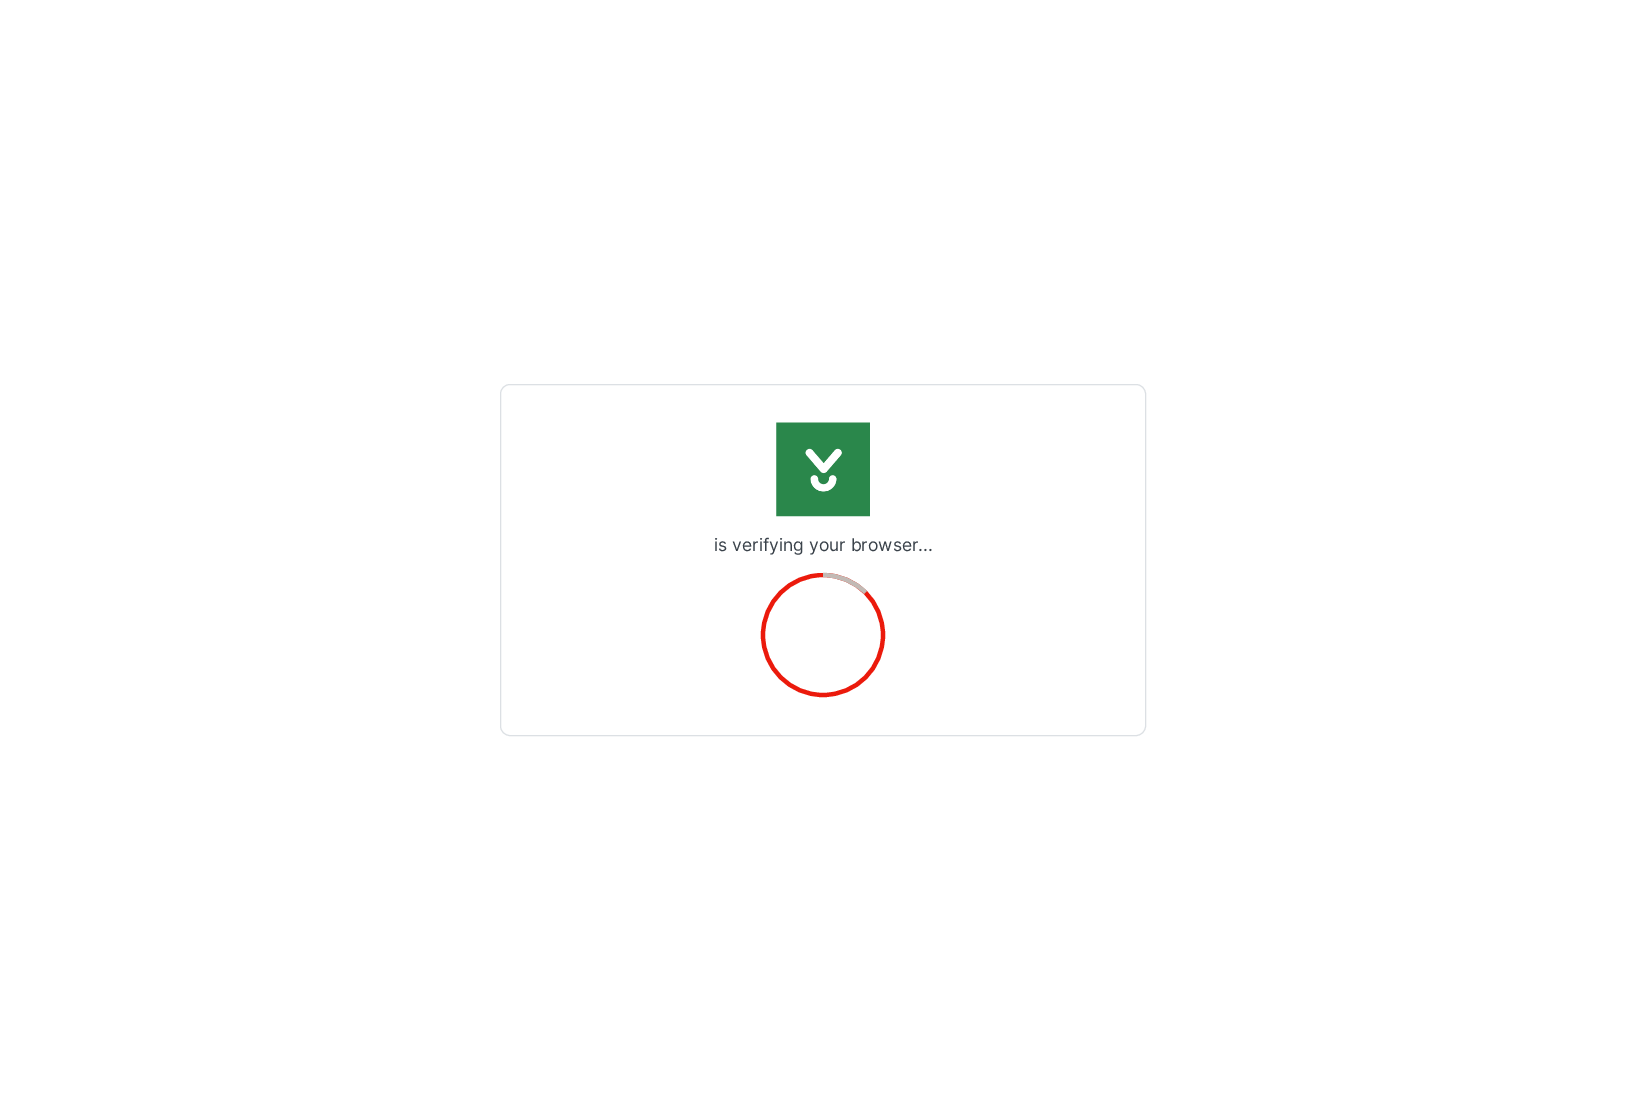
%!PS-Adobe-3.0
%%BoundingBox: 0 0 1646 1119
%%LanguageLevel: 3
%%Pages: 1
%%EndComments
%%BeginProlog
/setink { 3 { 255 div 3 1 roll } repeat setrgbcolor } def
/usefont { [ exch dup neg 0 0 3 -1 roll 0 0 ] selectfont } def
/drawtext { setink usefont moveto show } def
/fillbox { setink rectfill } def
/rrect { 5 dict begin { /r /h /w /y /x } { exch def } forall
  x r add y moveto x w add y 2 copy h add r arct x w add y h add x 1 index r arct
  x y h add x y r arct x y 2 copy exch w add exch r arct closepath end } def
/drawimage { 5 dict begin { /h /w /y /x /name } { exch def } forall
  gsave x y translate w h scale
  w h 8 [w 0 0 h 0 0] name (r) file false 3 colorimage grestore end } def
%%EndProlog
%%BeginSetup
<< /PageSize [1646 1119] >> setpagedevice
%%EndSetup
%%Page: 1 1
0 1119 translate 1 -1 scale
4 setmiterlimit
0 0 1646 1119 255 255 255 fillbox
220 224 228 setink
500.5 384.5 645 351 9.5 rrect stroke
(assets/img1.rgb) 776 422 94 95 drawimage
(is verifying your browser...) 714 551 /Inter-Regular 17.5 58 66 74 drawtext
gsave
539 573 569 125 rectclip
235 26 12 setink
4.2 setlinewidth
763 635 moveto 763 602 790 575 823 575 curveto 856.5 575 883 602 883 635 curveto 883 668 856.5 695 823 695 curveto 790 695 763 668 763 635 curveto closepath stroke
grestore
194 186 181 setink
4.2 setlinewidth
865.5 592.5 moveto 854.5 581.5 839 575 823 575 curveto stroke
showpage
%%EOF
